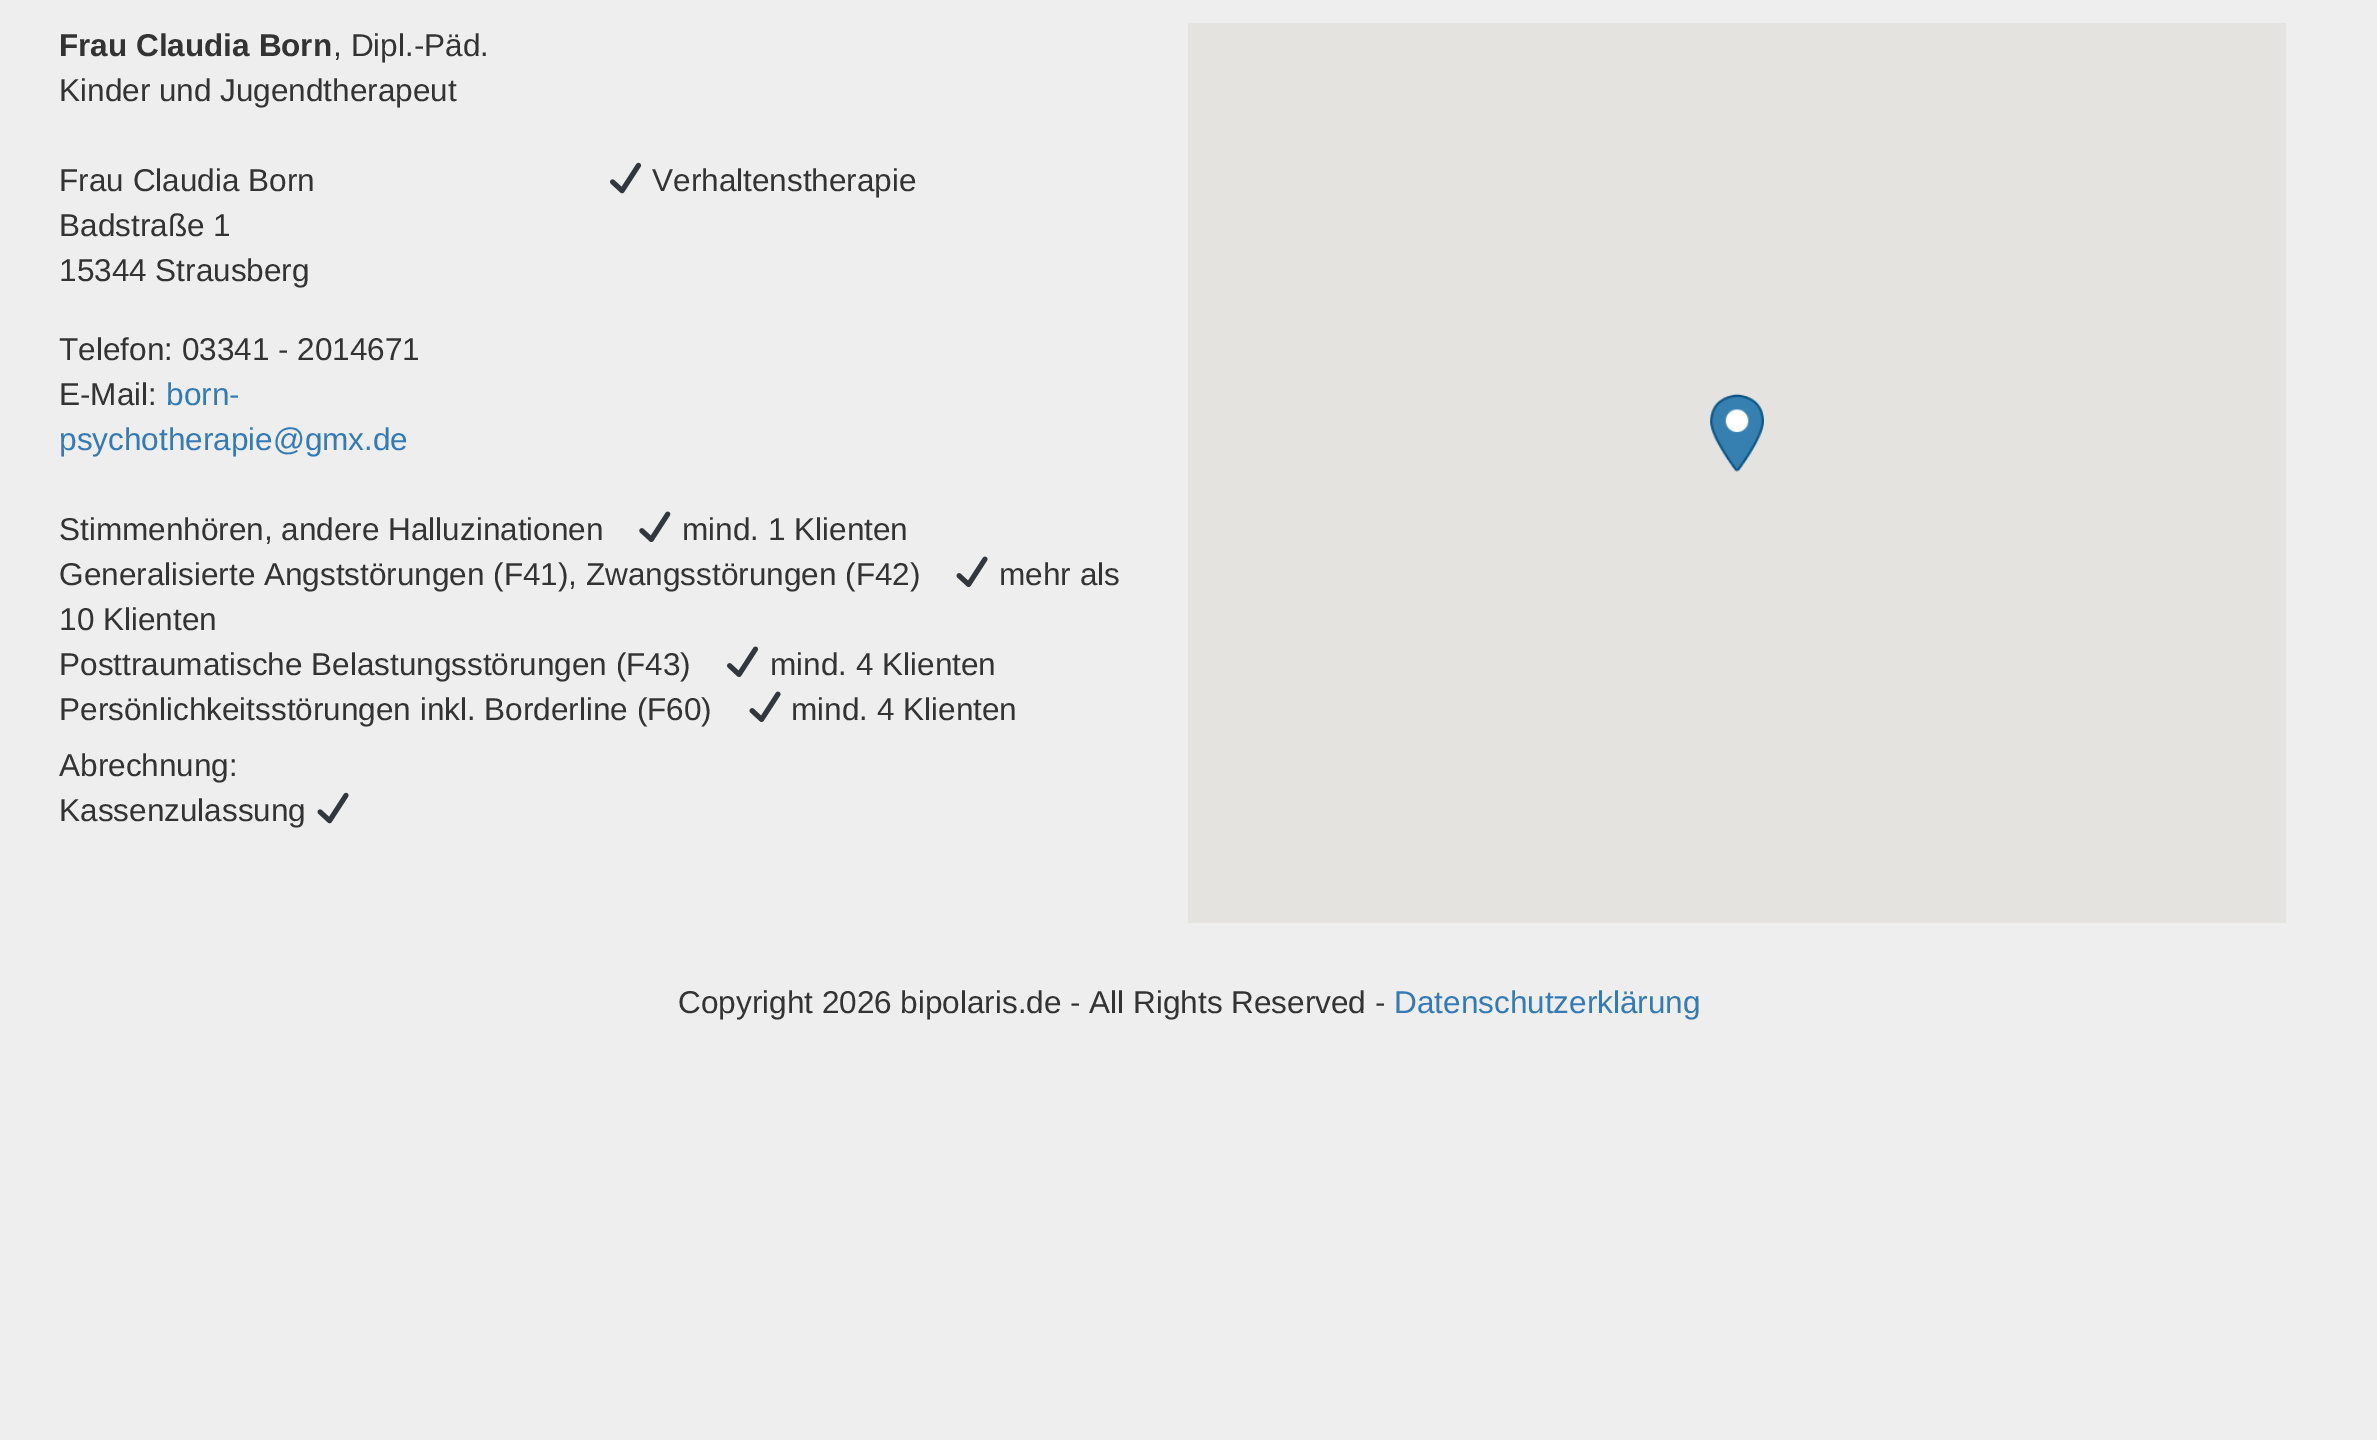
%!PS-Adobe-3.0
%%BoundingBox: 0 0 2377 1440
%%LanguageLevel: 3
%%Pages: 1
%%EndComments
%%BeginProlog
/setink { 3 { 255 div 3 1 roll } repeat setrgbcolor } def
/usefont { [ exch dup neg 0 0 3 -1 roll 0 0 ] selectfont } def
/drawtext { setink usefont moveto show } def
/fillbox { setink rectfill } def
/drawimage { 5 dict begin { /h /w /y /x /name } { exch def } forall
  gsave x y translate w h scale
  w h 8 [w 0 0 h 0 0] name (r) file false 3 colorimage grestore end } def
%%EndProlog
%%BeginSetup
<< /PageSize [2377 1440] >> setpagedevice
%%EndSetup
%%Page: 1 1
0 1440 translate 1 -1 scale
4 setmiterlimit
0 0 2377 1440 238 238 238 fillbox
(Frau Claudia Born) 59 56 /LiberationSans-Bold 31.5 51 51 51 drawtext
(, Dipl.-Päd.) 333 56 /LiberationSans-Regular 31.5 51 51 51 drawtext
(Kinder und Jugendtherapeut) 59 101 /LiberationSans-Regular 31.5 51 51 51 drawtext
(Frau Claudia Born) 59 191 /LiberationSans-Regular 31.5 51 51 51 drawtext
(Badstraße 1) 59 236 /LiberationSans-Regular 31.5 51 51 51 drawtext
(15344 Strausberg) 59 281 /LiberationSans-Regular 31.5 51 51 51 drawtext
(Telefon: 03341 - 2014671) 59 360 /LiberationSans-Regular 31.5 51 51 51 drawtext
(E-Mail:) 59 405 /LiberationSans-Regular 31.5 51 51 51 drawtext
(born-) 166 405 /LiberationSans-Regular 31.5 51 122 183 drawtext
(psychotherapie@gmx.de) 59 450 /LiberationSans-Regular 31.5 51 122 183 drawtext
(assets/img1.rgb) 610 162 31 32 drawimage
(Verhaltenstherapie) 652 191 /LiberationSans-Regular 31.5 51 51 51 drawtext
(Stimmenhören, andere Halluzinationen) 59 540 /LiberationSans-Regular 31.5 51 51 51 drawtext
(assets/img2.rgb) 639 511 32 31 drawimage
(mind. 1 Klienten) 682 540 /LiberationSans-Regular 31.5 51 51 51 drawtext
(Generalisierte Angststörungen \(F41\), Zwangsstörungen \(F42\)) 59 585 /LiberationSans-Regular 31.5 51 51 51 drawtext
(assets/img3.rgb) 956 556 32 31 drawimage
(mehr als) 999 585 /LiberationSans-Regular 31.5 51 51 51 drawtext
(10 Klienten) 59 630 /LiberationSans-Regular 31.5 51 51 51 drawtext
(Posttraumatische Belastungsstörungen \(F43\)) 59 675 /LiberationSans-Regular 31.5 51 51 51 drawtext
(assets/img4.rgb) 727 646 31 31 drawimage
(mind. 4 Klienten) 770 675 /LiberationSans-Regular 31.5 51 51 51 drawtext
(Persönlichkeitsstörungen inkl. Borderline \(F60\)) 59 720 /LiberationSans-Regular 31.5 51 51 51 drawtext
(assets/img3.rgb) 749 691 32 31 drawimage
(mind. 4 Klienten) 791 720 /LiberationSans-Regular 31.5 51 51 51 drawtext
(Abrechnung:) 59 776 /LiberationSans-Regular 31.5 51 51 51 drawtext
(Kassenzulassung) 59 821 /LiberationSans-Regular 31.5 51 51 51 drawtext
(assets/img5.rgb) 317 792 32 32 drawimage
1188 23 1098 900 229 227 223 fillbox
(assets/img6.rgb) 1710 393 54 79 drawimage
(Copyright 2026 bipolaris.de - All Rights Reserved -) 678 1013 /LiberationSans-Regular 31.5 51 51 51 drawtext
(Datenschutzerklärung) 1394 1013 /LiberationSans-Regular 31.5 51 122 183 drawtext
showpage
%%EOF
